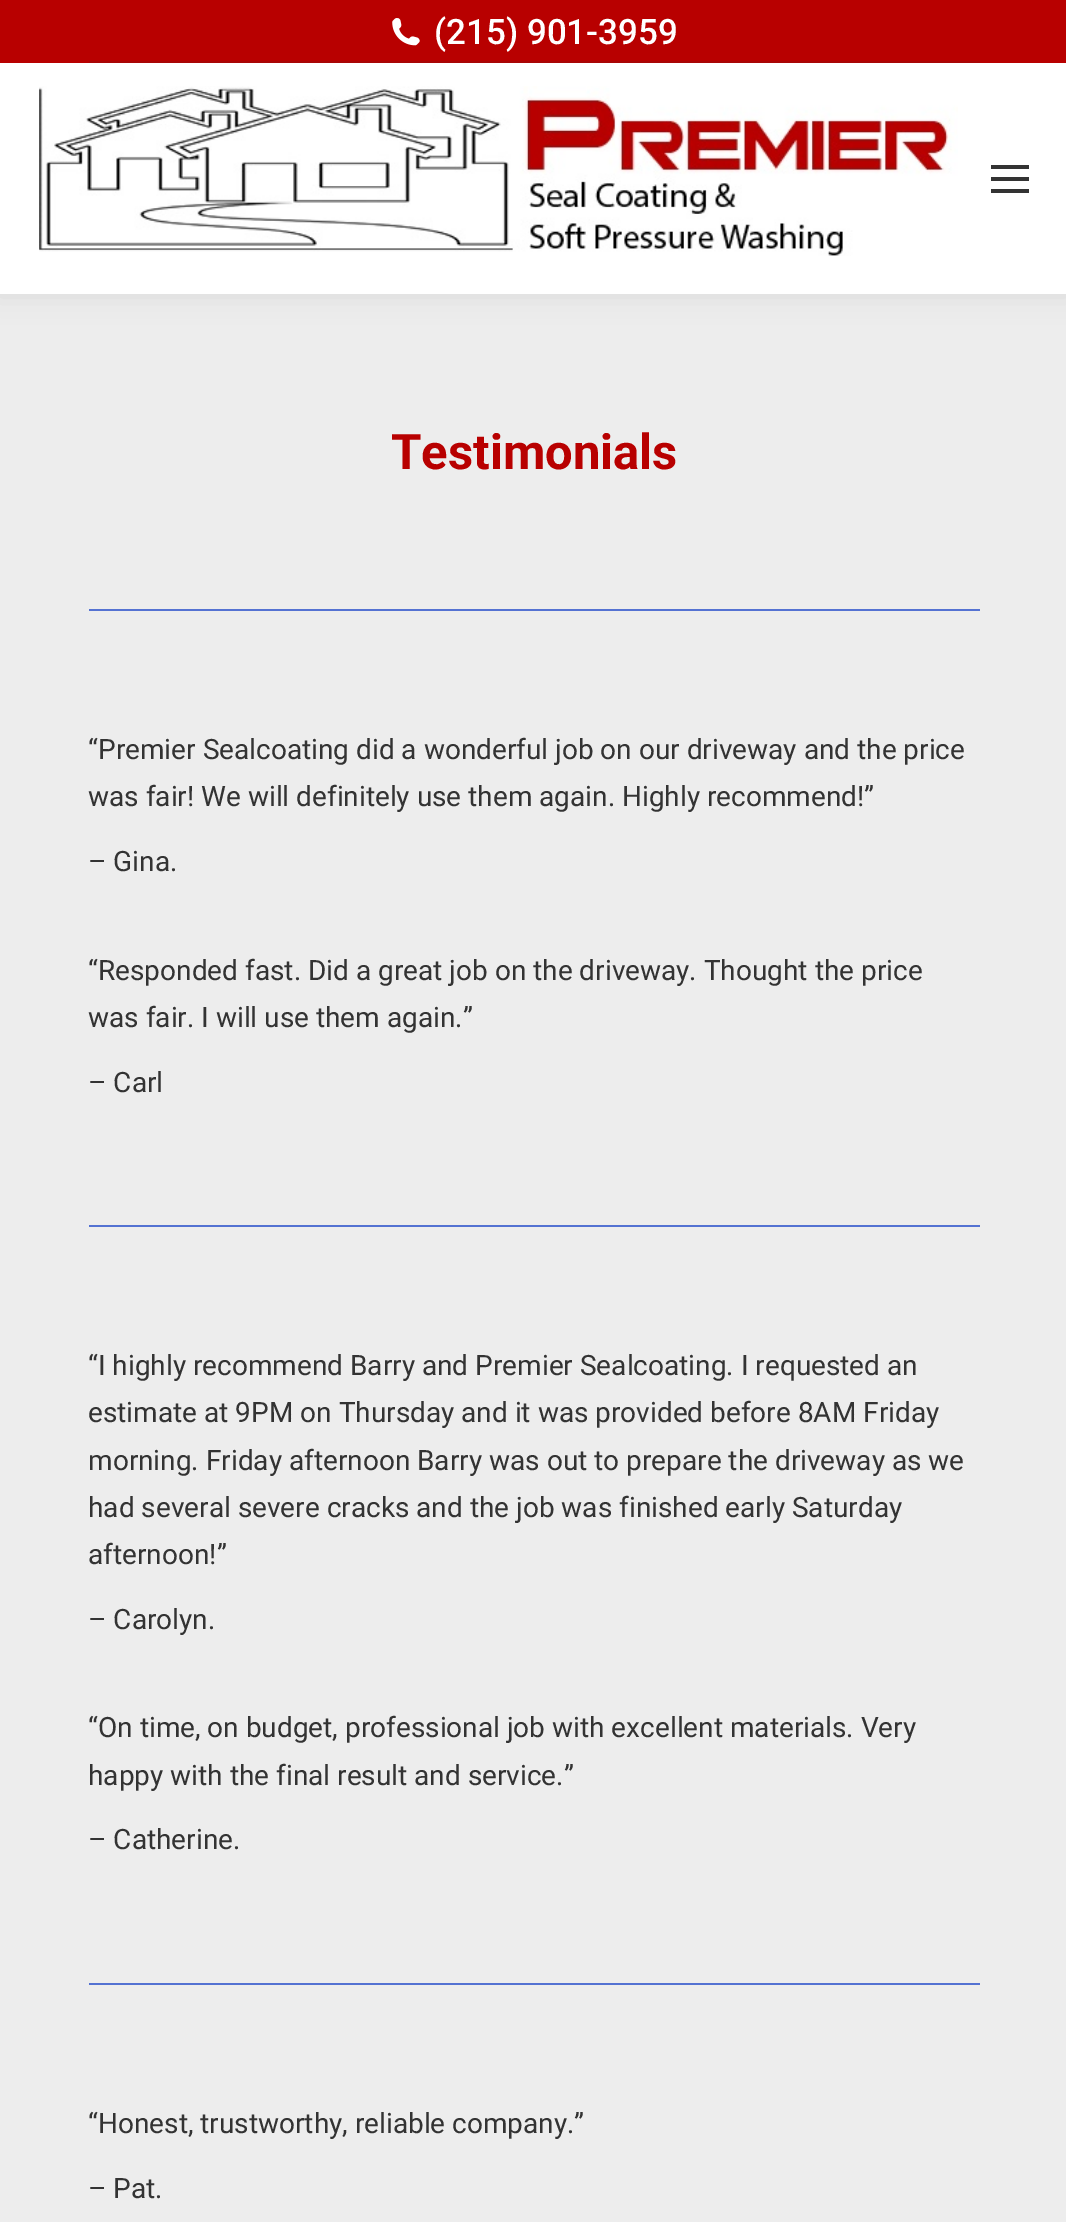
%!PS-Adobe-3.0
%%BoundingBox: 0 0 1066 2222
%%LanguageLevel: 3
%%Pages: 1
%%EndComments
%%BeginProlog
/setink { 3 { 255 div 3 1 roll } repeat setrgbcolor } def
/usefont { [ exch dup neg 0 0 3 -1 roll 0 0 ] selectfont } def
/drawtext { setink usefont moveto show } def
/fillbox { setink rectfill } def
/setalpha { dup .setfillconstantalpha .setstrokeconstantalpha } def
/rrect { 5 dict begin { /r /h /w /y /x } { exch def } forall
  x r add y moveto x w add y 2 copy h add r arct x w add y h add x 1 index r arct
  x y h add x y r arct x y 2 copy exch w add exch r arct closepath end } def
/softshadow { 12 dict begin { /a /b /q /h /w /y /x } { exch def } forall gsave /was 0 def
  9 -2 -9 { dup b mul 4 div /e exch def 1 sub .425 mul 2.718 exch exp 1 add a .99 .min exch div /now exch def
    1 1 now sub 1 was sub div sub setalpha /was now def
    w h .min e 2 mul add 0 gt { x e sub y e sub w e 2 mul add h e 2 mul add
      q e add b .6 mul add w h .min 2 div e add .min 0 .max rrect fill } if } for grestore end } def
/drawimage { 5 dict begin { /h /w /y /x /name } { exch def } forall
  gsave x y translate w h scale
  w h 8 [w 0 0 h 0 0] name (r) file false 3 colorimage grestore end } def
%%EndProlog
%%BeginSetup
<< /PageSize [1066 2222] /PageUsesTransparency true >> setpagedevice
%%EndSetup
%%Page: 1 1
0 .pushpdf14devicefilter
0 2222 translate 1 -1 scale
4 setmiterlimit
0 0 1066 2222 237 237 237 fillbox
0 0 0 setink
-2 -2 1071 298 0 13 0.07 softshadow
0 63 1066 231 255 255 255 fillbox
0 0 1066 63 184 0 0 fillbox
(assets/img1.rgb) 392 18 28 28 drawimage
(\(215\) 901-3959) 434 44 /Roboto-Medium 35 255 255 255 drawtext
89 61 891 2 168 6 6 fillbox
(assets/img2.rgb) 39 86 919 170 drawimage
991 165 38 4 51 51 51 fillbox
991 177 38 4 51 51 51 fillbox
991 189 38 4 51 51 51 fillbox
(Testimonials) 391 469 /Roboto-Bold 49 184 0 0 drawtext
89 609 891 2 84 114 210 fillbox
(“Premier Sealcoating did a wonderful job on our driveway and the price) 88 759 /Roboto-Regular 28 51 51 51 drawtext
(was fair! We will definitely use them again. Highly recommend!”) 88 806 /Roboto-Regular 28 51 51 51 drawtext
(– Gina.) 88 871 /Roboto-Regular 28 51 51 51 drawtext
(“Responded fast. Did a great job on the driveway. Thought the price) 88 980 /Roboto-Regular 28 51 51 51 drawtext
(was fair. I will use them again.”) 88 1027 /Roboto-Regular 28 51 51 51 drawtext
(– Carl) 88 1092 /Roboto-Regular 28 51 51 51 drawtext
89 1225 891 2 84 114 210 fillbox
(“I highly recommend Barry and Premier Sealcoating. I requested an) 88 1375 /Roboto-Regular 28 51 51 51 drawtext
(estimate at 9PM on Thursday and it was provided before 8AM Friday) 88 1422 /Roboto-Regular 28 51 51 51 drawtext
(morning. Friday afternoon Barry was out to prepare the driveway as we) 88 1470 /Roboto-Regular 28 51 51 51 drawtext
(had several severe cracks and the job was finished early Saturday) 88 1517 /Roboto-Regular 28 51 51 51 drawtext
(afternoon!”) 88 1564 /Roboto-Regular 28 51 51 51 drawtext
(– Carolyn.) 88 1629 /Roboto-Regular 28 51 51 51 drawtext
(“On time, on budget, professional job with excellent materials. Very) 88 1737 /Roboto-Regular 28 51 51 51 drawtext
(happy with the final result and service.”) 88 1785 /Roboto-Regular 28 51 51 51 drawtext
(– Catherine.) 88 1849 /Roboto-Regular 28 51 51 51 drawtext
89 1983 891 2 84 114 210 fillbox
(“Honest, trustworthy, reliable company.”) 88 2133 /Roboto-Regular 28 51 51 51 drawtext
(– Pat.) 88 2198 /Roboto-Regular 28 51 51 51 drawtext
.poppdf14devicefilter showpage
%%EOF
